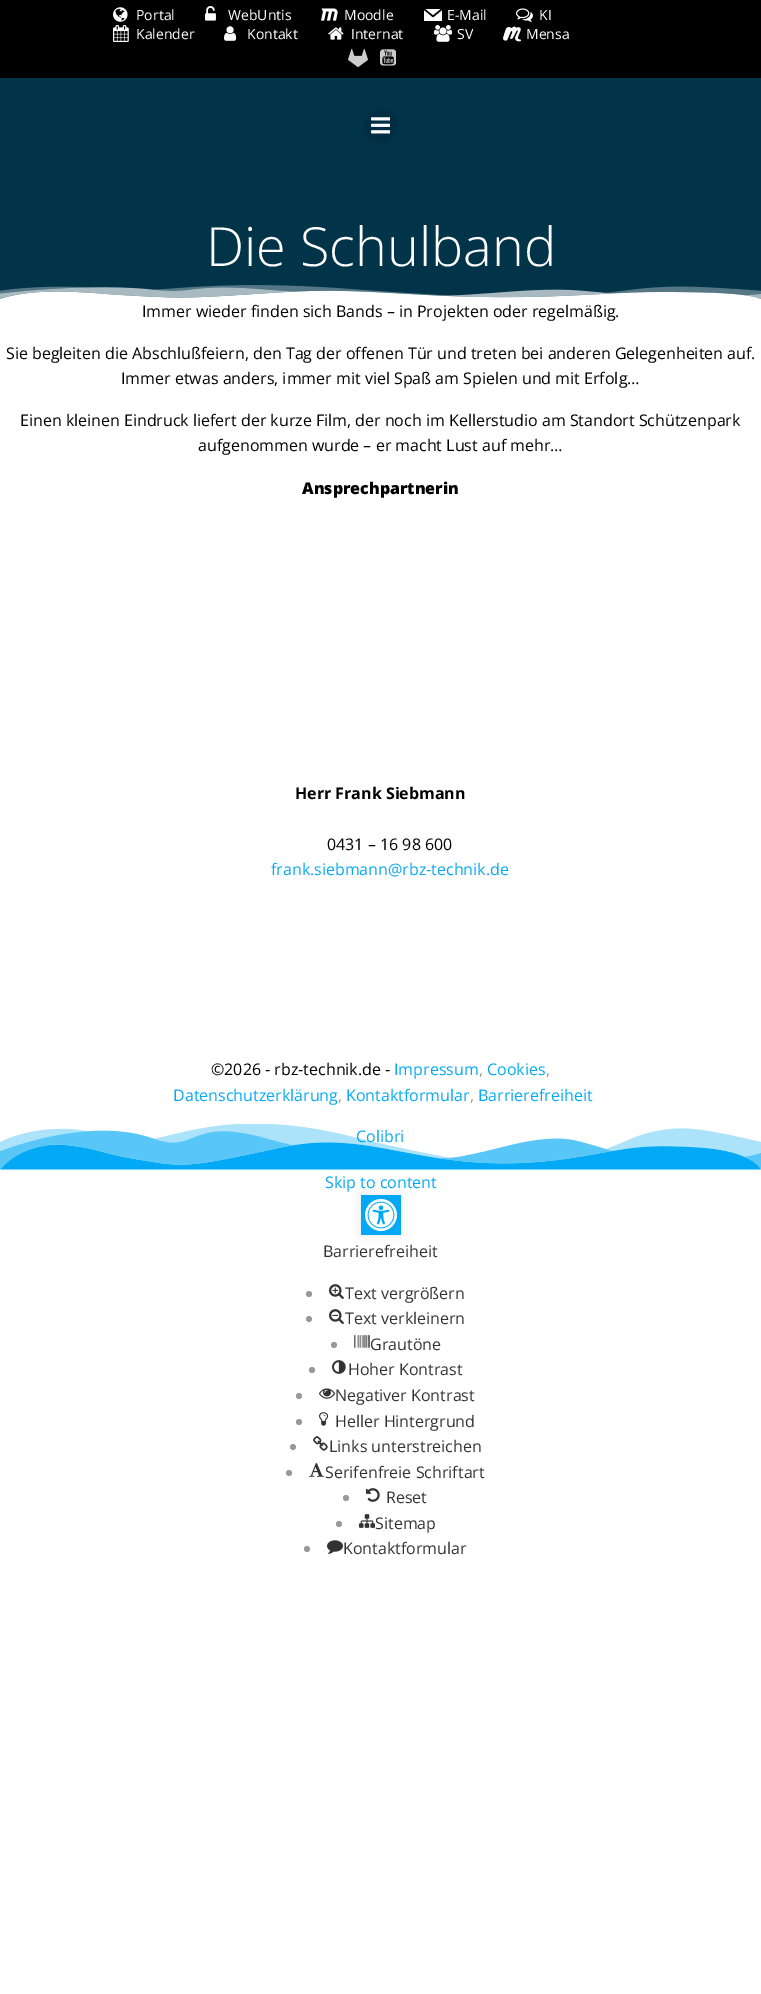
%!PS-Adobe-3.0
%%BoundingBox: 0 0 761 1994
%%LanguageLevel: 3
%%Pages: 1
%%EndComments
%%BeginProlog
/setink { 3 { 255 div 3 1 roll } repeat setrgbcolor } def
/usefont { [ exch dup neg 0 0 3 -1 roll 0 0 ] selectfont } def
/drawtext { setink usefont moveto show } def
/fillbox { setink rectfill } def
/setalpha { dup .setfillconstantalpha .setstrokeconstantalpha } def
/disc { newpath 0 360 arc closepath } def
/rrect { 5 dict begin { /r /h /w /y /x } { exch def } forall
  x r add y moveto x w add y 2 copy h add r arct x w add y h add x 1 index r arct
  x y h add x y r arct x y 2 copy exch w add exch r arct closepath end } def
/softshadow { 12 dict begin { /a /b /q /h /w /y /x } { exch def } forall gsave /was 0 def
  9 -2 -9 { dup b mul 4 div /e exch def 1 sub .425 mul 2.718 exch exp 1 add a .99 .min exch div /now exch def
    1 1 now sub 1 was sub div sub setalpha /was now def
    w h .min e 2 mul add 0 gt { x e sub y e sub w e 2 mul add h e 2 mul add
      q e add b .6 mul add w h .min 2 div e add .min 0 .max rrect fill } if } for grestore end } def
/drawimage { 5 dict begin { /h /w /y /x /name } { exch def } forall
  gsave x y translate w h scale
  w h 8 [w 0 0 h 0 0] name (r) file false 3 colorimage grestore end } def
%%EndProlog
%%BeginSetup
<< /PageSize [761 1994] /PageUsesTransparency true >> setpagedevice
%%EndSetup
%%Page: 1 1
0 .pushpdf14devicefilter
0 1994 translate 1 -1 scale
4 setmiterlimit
0 0 761 1994 255 255 255 fillbox
0 0 761 78 0 0 0 fillbox
(assets/img1.rgb) 113 7 15 15 drawimage
(Portal) 136 20 /OpenSans-Regular 14 255 255 255 drawtext
(assets/img2.rgb) 205 6 11 15 drawimage
(WebUntis) 228 20 /OpenSans-Regular 14 255 255 255 drawtext
(assets/img3.rgb) 321 8 17 13 drawimage
(Moodle) 344 20 /OpenSans-Regular 14 255 255 255 drawtext
(assets/img4.rgb) 424 9 18 12 drawimage
(E-Mail) 447 20 /OpenSans-Regular 14 255 255 255 drawtext
(assets/img5.rgb) 516 8 17 14 drawimage
(KI) 539 20 /OpenSans-Regular 14 255 255 255 drawtext
(assets/img6.rgb) 113 25 16 17 drawimage
(Kalender) 136 39 /OpenSans-Regular 14 255 255 255 drawtext
(assets/img7.rgb) 224 26 13 15 drawimage
(Kontakt) 247 39 /OpenSans-Regular 14 255 255 255 drawtext
(assets/img8.rgb) 328 27 16 13 drawimage
(Internat) 351 39 /OpenSans-Regular 14 255 255 255 drawtext
(assets/img9.rgb) 434 25 18 17 drawimage
(SV) 457 39 /OpenSans-Regular 14 255 255 255 drawtext
(assets/img10.rgb) 503 26 18 16 drawimage
(Mensa) 526 39 /OpenSans-Regular 14 255 255 255 drawtext
(assets/img11.rgb) 348 48 20 20 drawimage
(assets/img12.rgb) 380 49 16 17 drawimage
0 78 761 221 1 51 73 fillbox
1 46 66 setink
381 126 17 disc fill
(assets/img13.rgb) 371 117 19 17 drawimage
(Die Schulband) 206 266 /OpenSans-Light 54 255 255 255 drawtext
(assets/img14.rgb) 0 285 761 14 drawimage
(Immer wieder finden sich Bands – in Projekten oder regelmäßig.) 142 317 /OpenSans-Regular 16 0 0 0 drawtext
(Sie begleiten die Abschlußfeiern, den Tag der offenen Tür und treten bei anderen Gelegenheiten auf.) 6 359 /OpenSans-Regular 16 0 0 0 drawtext
(Immer etwas anders, immer mit viel Spaß am Spielen und mit Erfolg…) 121 384 /OpenSans-Regular 16 0 0 0 drawtext
(Einen kleinen Eindruck liefert der kurze Film, der noch im Kellerstudio am Standort Schützenpark) 20 426 /OpenSans-Regular 16 0 0 0 drawtext
(aufgenommen wurde – er macht Lust auf mehr…) 198 451 /OpenSans-Regular 16 0 0 0 drawtext
(Ansprechpartnerin) 302 494 /OpenSans-ExtraBold 16 0 0 0 drawtext
(Herr Frank Siebmann) 295 799 /OpenSans-Bold 16 0 0 0 drawtext
(0431 – 16 98 600) 327 850 /OpenSans-Regular 16 0 0 0 drawtext
(frank.siebmann@rbz-technik.de) 271 875 /OpenSans-Regular 16 3 169 244 drawtext
(©2026 - rbz-technik.de -) 211 1075 /OpenSans-Regular 16 0 0 0 drawtext
(Impressum) 394 1075 /OpenSans-Regular 16 3 169 244 drawtext
(,) 479 1075 /OpenSans-Regular 16 153 153 153 drawtext
(Cookies) 487 1075 /OpenSans-Regular 16 3 169 244 drawtext
(,) 546 1075 /OpenSans-Regular 16 153 153 153 drawtext
(Datenschutzerklärung) 173 1101 /OpenSans-Regular 16 3 169 244 drawtext
(,) 338 1101 /OpenSans-Regular 16 153 153 153 drawtext
(Kontaktformular) 346 1101 /OpenSans-Regular 16 3 169 244 drawtext
(,) 470 1101 /OpenSans-Regular 16 153 153 153 drawtext
(Barrierefreiheit) 478 1101 /OpenSans-Regular 16 3 169 244 drawtext
(assets/img15.rgb) 0 1124 761 46 drawimage
(Colibri) 356 1142 /OpenSans-Regular 16 3 169 244 drawtext
(Skip to content) 325 1188 /OpenSans-Regular 16 3 169 244 drawtext
0 0 0 setink
361 1195 40 40 0 5 0.1 softshadow
361 1195 40 40 3 169 244 fillbox
(assets/img16.rgb) 365 1199 32 32 drawimage
(Barrierefreiheit) 323 1257 /OpenSans-Regular 16 51 51 51 drawtext
153 153 153 setink
309 1294 3 disc fill
(assets/img17.rgb) 329 1284 15 15 drawimage
(Text vergrößern) 345 1299 /OpenSans-Regular 16 51 51 51 drawtext
153 153 153 setink
309 1319 3 disc fill
(assets/img18.rgb) 329 1309 15 15 drawimage
(Text verkleinern) 345 1324 /OpenSans-Regular 16 51 51 51 drawtext
153 153 153 setink
334 1345 3 disc fill
(assets/img19.rgb) 354 1335 16 13 drawimage
(Grautöne) 370 1350 /OpenSans-Regular 16 51 51 51 drawtext
153 153 153 setink
312 1370 3 disc fill
(assets/img20.rgb) 332 1360 14 14 drawimage
(Hoher Kontrast) 348 1375 /OpenSans-Regular 16 51 51 51 drawtext
153 153 153 setink
299 1396 3 disc fill
(assets/img21.rgb) 319 1388 16 11 drawimage
(Negativer Kontrast) 335 1401 /OpenSans-Regular 16 51 51 51 drawtext
153 153 153 setink
299 1422 3 disc fill
(assets/img22.rgb) 319 1412 10 14 drawimage
(Heller Hintergrund) 335 1427 /OpenSans-Regular 16 51 51 51 drawtext
153 153 153 setink
293 1447 3 disc fill
(assets/img23.rgb) 313 1436 15 15 drawimage
(Links unterstreichen) 329 1452 /OpenSans-Regular 16 51 51 51 drawtext
153 153 153 setink
289 1473 3 disc fill
(assets/img24.rgb) 309 1463 15 14 drawimage
(Serifenfreie Schriftart) 325 1478 /OpenSans-Regular 16 51 51 51 drawtext
153 153 153 setink
346 1498 3 disc fill
(assets/img25.rgb) 366 1488 14 14 drawimage
(Reset) 386 1503 /OpenSans-Regular 16 51 51 51 drawtext
153 153 153 setink
339 1524 3 disc fill
(assets/img26.rgb) 359 1514 16 14 drawimage
(Sitemap) 375 1529 /OpenSans-Regular 16 51 51 51 drawtext
153 153 153 setink
307 1549 3 disc fill
(assets/img27.rgb) 327 1540 16 14 drawimage
(Kontaktformular) 343 1554 /OpenSans-Regular 16 51 51 51 drawtext
.poppdf14devicefilter showpage
%%EOF
